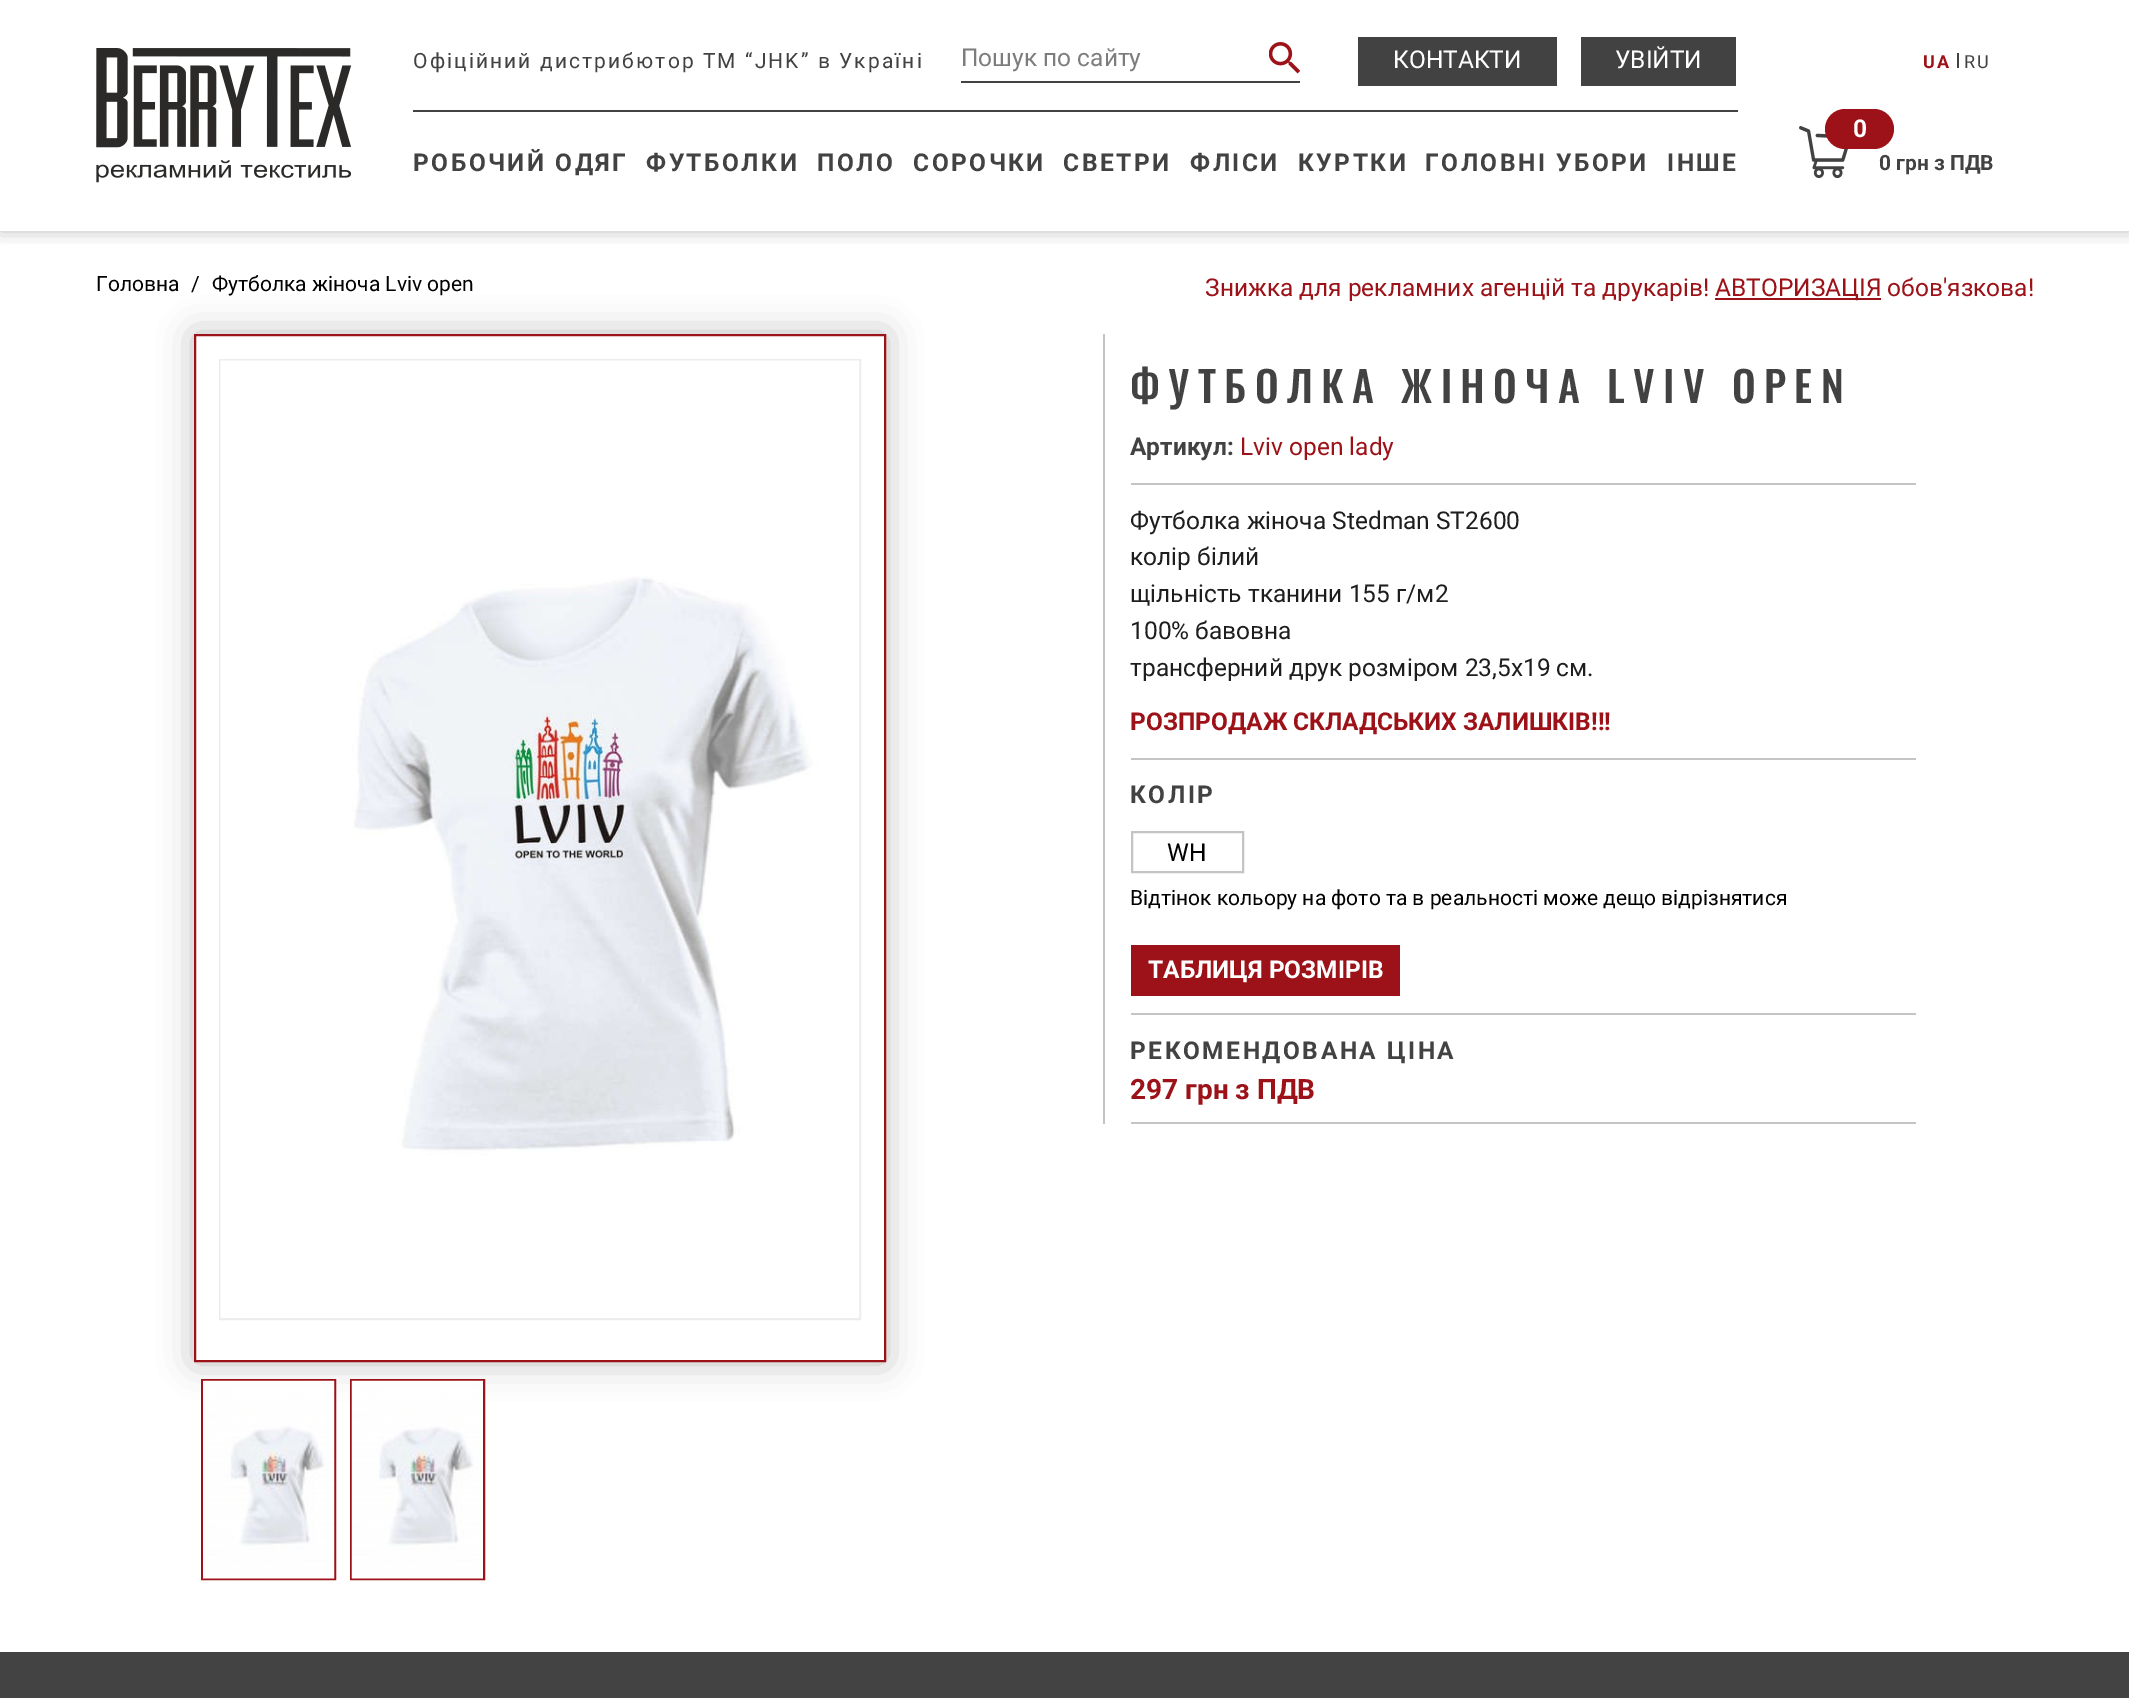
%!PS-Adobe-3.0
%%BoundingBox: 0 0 2129 1698
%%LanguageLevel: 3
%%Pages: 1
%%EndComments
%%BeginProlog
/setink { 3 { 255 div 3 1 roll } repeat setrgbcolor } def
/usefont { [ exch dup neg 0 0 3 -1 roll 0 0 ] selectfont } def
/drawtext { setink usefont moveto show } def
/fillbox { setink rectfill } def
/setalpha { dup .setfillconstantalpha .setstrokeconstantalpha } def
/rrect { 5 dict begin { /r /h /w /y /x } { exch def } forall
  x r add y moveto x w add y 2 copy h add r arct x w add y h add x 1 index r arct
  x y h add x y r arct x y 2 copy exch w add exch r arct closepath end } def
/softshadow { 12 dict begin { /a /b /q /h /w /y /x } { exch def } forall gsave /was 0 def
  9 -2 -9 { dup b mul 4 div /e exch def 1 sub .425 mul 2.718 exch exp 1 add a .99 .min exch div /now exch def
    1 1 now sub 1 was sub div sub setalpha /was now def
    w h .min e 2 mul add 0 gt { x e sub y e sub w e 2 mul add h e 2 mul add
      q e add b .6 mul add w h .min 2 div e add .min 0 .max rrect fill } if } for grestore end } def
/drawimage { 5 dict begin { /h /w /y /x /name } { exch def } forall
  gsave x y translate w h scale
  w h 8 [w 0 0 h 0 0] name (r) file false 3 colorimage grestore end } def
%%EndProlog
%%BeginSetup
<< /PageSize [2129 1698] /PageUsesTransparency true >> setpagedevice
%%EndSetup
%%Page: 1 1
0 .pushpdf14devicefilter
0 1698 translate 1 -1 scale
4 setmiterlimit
0 0 2129 1698 255 255 255 fillbox
gsave
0 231 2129 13 rectclip
0 0 0 setink
0 0 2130 231 0 9 0.25 softshadow
grestore
(assets/img1.rgb) 96 48 256 135 drawimage
413 110 1325 2 66 66 66 fillbox
/Roboto-Regular 21 usefont
413 68 moveto 2.1 0 (Офіційний дистрибютор ТМ “JHK” в Україні) ashow
961 81 339 2 66 66 66 fillbox
(Пошук по сайту) 961 66 /Roboto-Regular 24.5 125 125 125 drawtext
(assets/img2.rgb) 1269 42 31 32 drawimage
1358 37 199 49 66 66 66 fillbox
(КОНТАКТИ) 1393 68 /Roboto-Regular 24.5 255 255 255 drawtext
1581 37 155 49 66 66 66 fillbox
(УВІЙТИ) 1615 68 /Roboto-Regular 24.5 255 255 255 drawtext
/Roboto-Bold 24.5 usefont
66 66 66 setink
413 171 moveto 2.5 0 (РОБОЧИЙ ОДЯГ) ashow
646 171 moveto 2.5 0 (ФУТБОЛКИ) ashow
817 171 moveto 2.5 0 (ПОЛО) ashow
913 171 moveto 2.5 0 (СОРОЧКИ) ashow
1063 171 moveto 2.5 0 (СВЕТРИ) ashow
1190 171 moveto 2.5 0 (ФЛІСИ) ashow
1298 171 moveto 2.5 0 (КУРТКИ) ashow
1425 171 moveto 2.5 0 (ГОЛОВНІ УБОРИ) ashow
1667 171 moveto 2.5 0 (ІНШЕ) ashow
/Roboto-Bold 18 usefont
156 18 24 setink
1923 68 moveto 2 0 (UA) ashow
1957 53 2 15 66 66 66 fillbox
/Roboto-Regular 18 usefont
1964 68 moveto 2 0 (RU) ashow
(assets/img3.rgb) 1799 126 49 53 drawimage
156 18 24 setink
1825 109 69 40 20 rrect fill
(0) 1853 137 /Roboto-Bold 24.5 255 255 255 drawtext
(0 грн з ПДВ) 1879 170 /Roboto-Bold 21 66 66 66 drawtext
gsave
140 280 moveto 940 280 lineto 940 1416 lineto 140 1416 lineto closepath 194 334 moveto 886 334 lineto 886 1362 lineto 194 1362 lineto closepath eoclip newpath
0 0 0 setink
194 334 692 1028 0 17.5 0.25 softshadow
grestore
(Головна) 96 291 /Roboto-Regular 21 0 0 0 drawtext
(/) 191 291 /Roboto-Regular 21 0 0 0 drawtext
(Футболка жіноча Lviv open) 212 291 /Roboto-Regular 21 0 0 0 drawtext
(Знижка для рекламних агенцій та друкарів!) 1205 296 /Roboto-Regular 24.5 156 18 24 drawtext
1715 298 166 2 156 18 24 fillbox
(АВТОРИЗАЦІЯ обов'язкова!) 1715 296 /Roboto-Regular 24.5 156 18 24 drawtext
2 setlinewidth
195 335 690 1026 rectstroke
237 237 237 setink
220 360 640 959 rectstroke
(assets/img4.rgb) 220 360 640 958 drawimage
156 18 24 setink
202 1380 133 199 rectstroke
(assets/img5.rgb) 203 1380 132 199 drawimage
351 1380 133 199 rectstroke
(assets/img6.rgb) 351 1380 132 199 drawimage
1103 334 2 790 196 196 196 fillbox
/Oswald-Medium 42 usefont
66 66 66 setink
1130 403 moveto 8.4 0 (ФУТБОЛКА ЖІНОЧА LVIV OPEN) ashow
(Артикул:) 1130 455 /Roboto-Bold 24.5 66 66 66 drawtext
(Lviv open lady) 1240 455 /Roboto-Regular 24.5 156 18 24 drawtext
1131 483 785 2 196 196 196 fillbox
(Футболка жіноча Stedman ST2600) 1130 529 /Roboto-Regular 24.5 30 30 30 drawtext
(колір білий) 1130 565 /Roboto-Regular 24.5 30 30 30 drawtext
(щільність тканини 155 г/м2) 1130 602 /Roboto-Regular 24.5 30 30 30 drawtext
(100% бавовна) 1130 639 /Roboto-Regular 24.5 30 30 30 drawtext
(трансферний друк розміром 23,5х19 см.) 1130 676 /Roboto-Regular 24.5 30 30 30 drawtext
(РОЗПРОДАЖ СКЛАДСЬКИХ ЗАЛИШКІВ!!!) 1130 730 /Roboto-Bold 24.5 156 18 24 drawtext
1131 758 785 2 196 196 196 fillbox
66 66 66 setink
1130 803 moveto 2.5 0 (КОЛІР) ashow
196 196 196 setink
1132 832 111 40 rectstroke
(WH) 1167 861 /Roboto-Regular 24.5 0 0 0 drawtext
(Відтінок кольору на фото та в реальності може дещо відрізнятися) 1130 905 /Roboto-Regular 21 0 0 0 drawtext
1131 945 269 51 156 18 24 fillbox
(ТАБЛИЦЯ РОЗМІРІВ) 1148 978 /Roboto-Bold 24.5 255 255 255 drawtext
1131 1013 785 2 196 196 196 fillbox
1131 1122 785 2 196 196 196 fillbox
66 66 66 setink
1130 1059 moveto 2.5 0 (РЕКОМЕНДОВАНА ЦІНА) ashow
(297 грн з ПДВ) 1130 1099 /Roboto-Bold 28 156 18 24 drawtext
0 1652 2129 46 67 67 67 fillbox
.poppdf14devicefilter showpage
%%EOF
